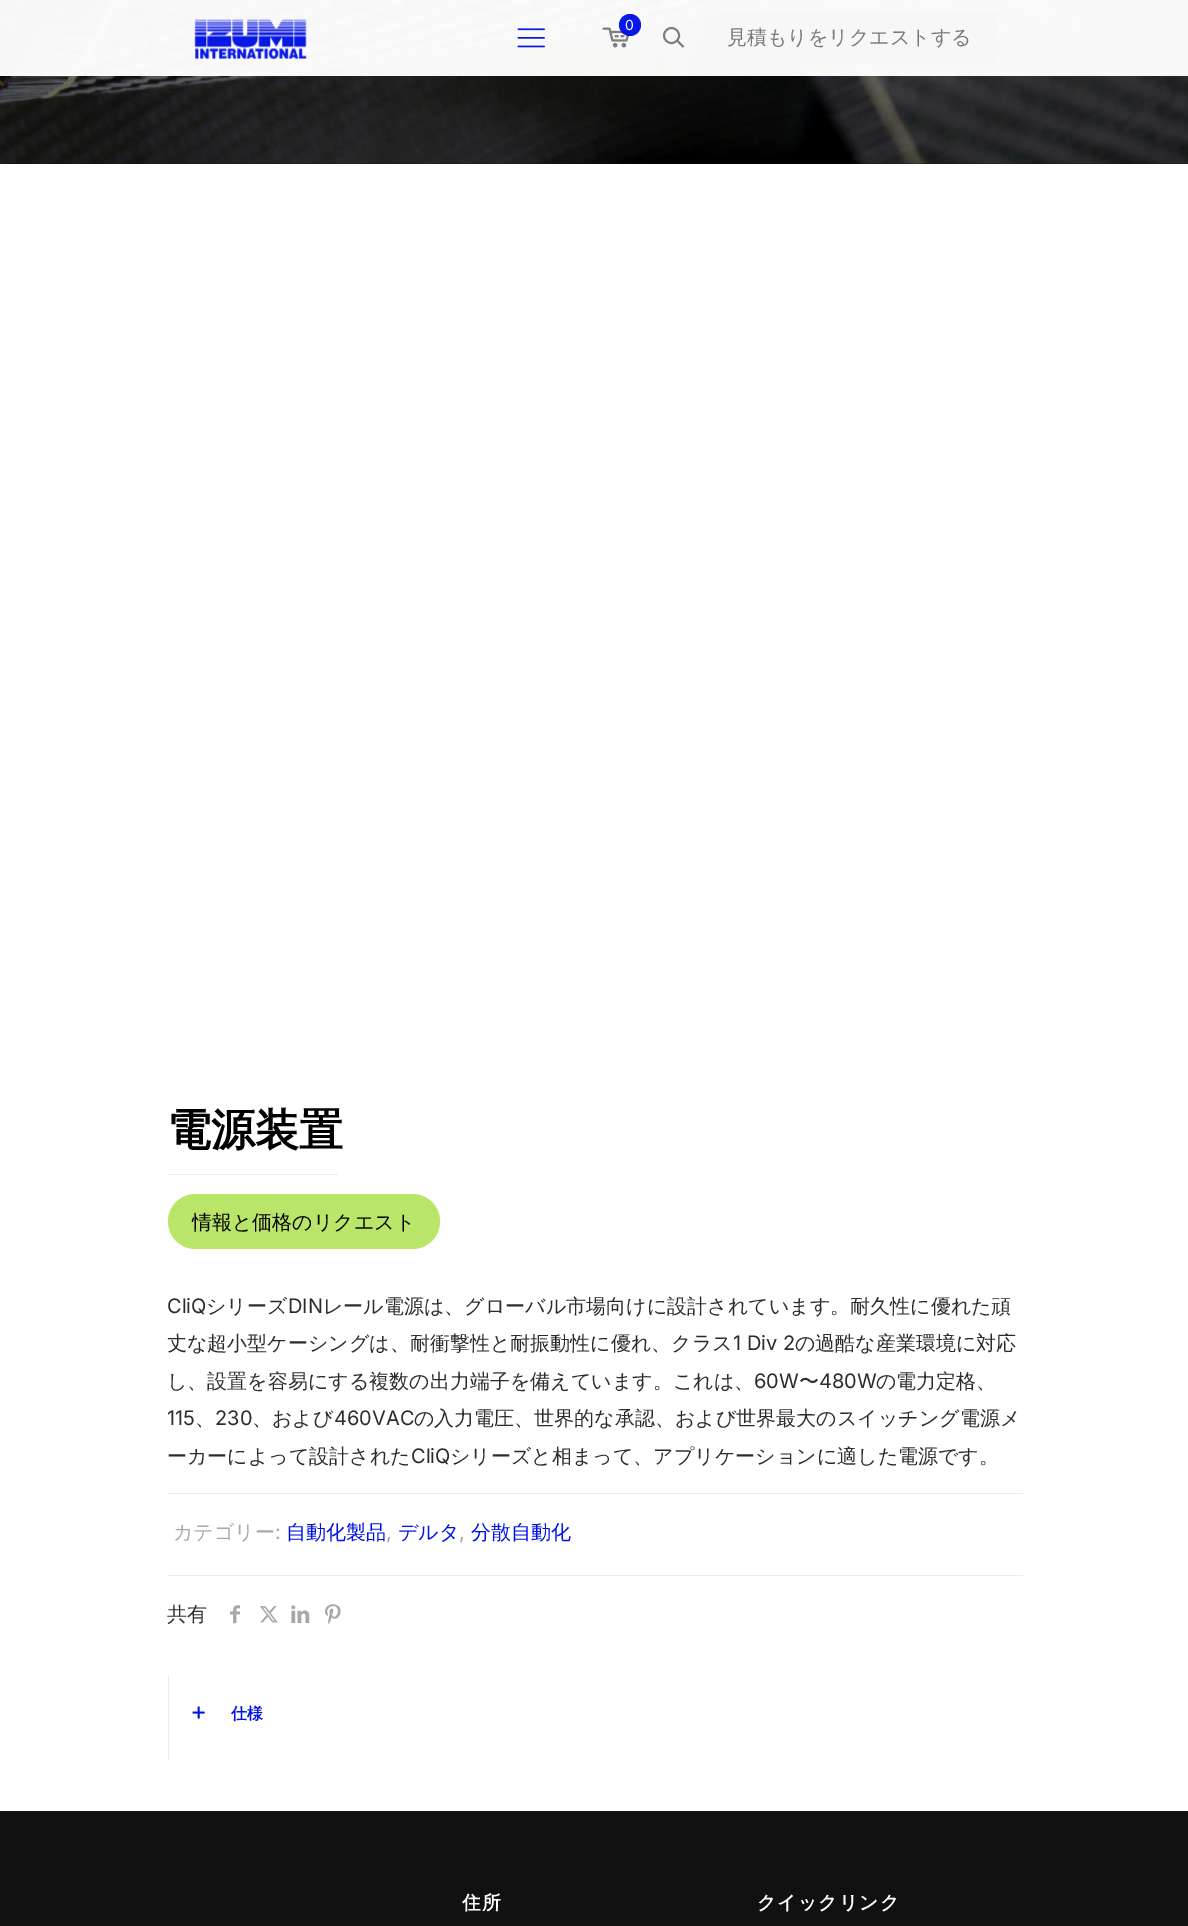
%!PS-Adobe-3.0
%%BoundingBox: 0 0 1188 1926
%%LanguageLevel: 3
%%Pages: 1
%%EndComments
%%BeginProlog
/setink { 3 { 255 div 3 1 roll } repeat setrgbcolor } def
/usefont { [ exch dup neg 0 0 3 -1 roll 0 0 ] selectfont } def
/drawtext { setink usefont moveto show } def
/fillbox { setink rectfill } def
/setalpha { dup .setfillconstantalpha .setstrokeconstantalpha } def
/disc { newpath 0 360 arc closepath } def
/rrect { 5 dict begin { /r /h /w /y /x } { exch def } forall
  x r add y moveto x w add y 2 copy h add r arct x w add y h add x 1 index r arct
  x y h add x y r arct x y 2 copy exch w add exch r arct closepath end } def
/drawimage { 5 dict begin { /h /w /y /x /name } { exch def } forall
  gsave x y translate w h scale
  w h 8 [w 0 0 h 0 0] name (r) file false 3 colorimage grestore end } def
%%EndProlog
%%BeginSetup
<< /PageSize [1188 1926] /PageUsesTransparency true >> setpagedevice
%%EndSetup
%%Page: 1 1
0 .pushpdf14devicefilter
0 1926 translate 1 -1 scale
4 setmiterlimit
0 0 1188 1926 255 255 255 fillbox
(assets/img1.rgb) 0 0 1188 164 drawimage
0.97 setalpha
0 0 1188 76 255 255 255 fillbox
1 setalpha
(assets/img2.rgb) 194 19 113 41 drawimage
(assets/img3.rgb) 517 28 28 20 drawimage
(assets/img4.rgb) 602 27 29 21 drawimage
0.97 setalpha
0 17 229 setink
630 25 11 disc fill
1 setalpha
(0) 625 30 /Inter-Regular 14 248 248 254 drawtext
126 126 126 setink
1.9 setlinewidth
671.5 35.5 7.5 disc stroke
0.97 setalpha
122 122 122 setink
677 40.5 moveto 683.5 47 lineto stroke
703 13 295 51 247 247 247 fillbox
1 setalpha
(見積もりをリクエストする) 727 44 /WenQuanYiZenHei-Medium 20 120 120 120 drawtext
(電源装置) 167 1145 /WenQuanYiZenHei-Bold 44 0 0 0 drawtext
168 1174 170 1 235 235 235 fillbox
185 229 105 setink
168 1194 272 55 27.5 rrect fill
(情報と価格のリクエスト) 192 1229 /WenQuanYiZenHei-Medium 20 0 0 0 drawtext
(CliQ) 167 1313 /Inter-Regular 20 43 43 43 drawtext
(シリーズ) 206 1313 /WenQuanYiZenHei-Medium 20 43 43 43 drawtext
(DIN) 288 1313 /Inter-Regular 20 43 43 43 drawtext
(レール電源は、グローバル市場向けに設計されています。耐久性に優れた頑) 323 1313 /WenQuanYiZenHei-Medium 20 43 43 43 drawtext
(丈な超小型ケーシングは、耐衝撃性と耐振動性に優れ、クラス) 167 1350 /WenQuanYiZenHei-Medium 20 43 43 43 drawtext
(1 Div 2) 733 1350 /Inter-Regular 20 43 43 43 drawtext
(の過酷な産業環境に対応) 795 1350 /WenQuanYiZenHei-Medium 20 43 43 43 drawtext
(し、設置を容易にする複数の出力端子を備えています。これは、) 167 1388 /WenQuanYiZenHei-Medium 20 43 43 43 drawtext
(60W) 754 1388 /Inter-Regular 20 43 43 43 drawtext
(〜) 799 1388 /WenQuanYiZenHei-Medium 20 43 43 43 drawtext
(480W) 819 1388 /Inter-Regular 20 43 43 43 drawtext
(の電力定格、) 876 1388 /WenQuanYiZenHei-Medium 20 43 43 43 drawtext
(115) 167 1425 /Inter-Regular 20 43 43 43 drawtext
(、) 195 1425 /WenQuanYiZenHei-Medium 20 43 43 43 drawtext
(230) 215 1425 /Inter-Regular 20 43 43 43 drawtext
(、および) 252 1425 /WenQuanYiZenHei-Medium 20 43 43 43 drawtext
(460VAC) 334 1425 /Inter-Regular 20 43 43 43 drawtext
(の入力電圧、世界的な承認、および世界最大のスイッチング電源メ) 414 1425 /WenQuanYiZenHei-Medium 20 43 43 43 drawtext
(ーカーによって設計された) 167 1463 /WenQuanYiZenHei-Medium 20 43 43 43 drawtext
(CliQ) 411 1463 /Inter-Regular 20 43 43 43 drawtext
(シリーズと相まって、アプリケーションに適した電源です。) 450 1463 /WenQuanYiZenHei-Medium 20 43 43 43 drawtext
168 1493 855 1 235 235 235 fillbox
(カテゴリー) 173 1539 /WenQuanYiZenHei-Medium 20 168 168 168 drawtext
(:) 275 1539 /Inter-Regular 20 168 168 168 drawtext
(自動化製品) 286 1539 /WenQuanYiZenHei-Medium 20 0 17 229 drawtext
(,) 386 1539 /Inter-Regular 20 168 168 168 drawtext
(デルタ) 398 1539 /WenQuanYiZenHei-Medium 20 0 17 229 drawtext
(,) 459 1539 /Inter-Regular 20 168 168 168 drawtext
(分散自動化) 471 1539 /WenQuanYiZenHei-Medium 20 0 17 229 drawtext
168 1575 855 1 235 235 235 fillbox
(共有) 167 1621 /WenQuanYiZenHei-Medium 20 43 43 43 drawtext
(assets/img5.rgb) 230 1605 10 19 drawimage
(assets/img6.rgb) 260 1606 18 17 drawimage
(assets/img7.rgb) 291 1605 19 19 drawimage
(assets/img8.rgb) 325 1604 16 20 drawimage
168 1676 1 85 235 235 235 fillbox
(assets/img9.rgb) 192 1706 13 13 drawimage
(仕様) 231 1719 /WenQuanYiZenHei-Bold 16 0 17 229 drawtext
0 1811 1188 115 17 17 17 fillbox
/WenQuanYiZenHei-Bold 18.75 usefont
255 255 255 setink
462 1909 moveto 1.25 0 (住所) ashow
757 1909 moveto 1.25 0 (クイックリンク) ashow
.poppdf14devicefilter showpage
%%EOF
